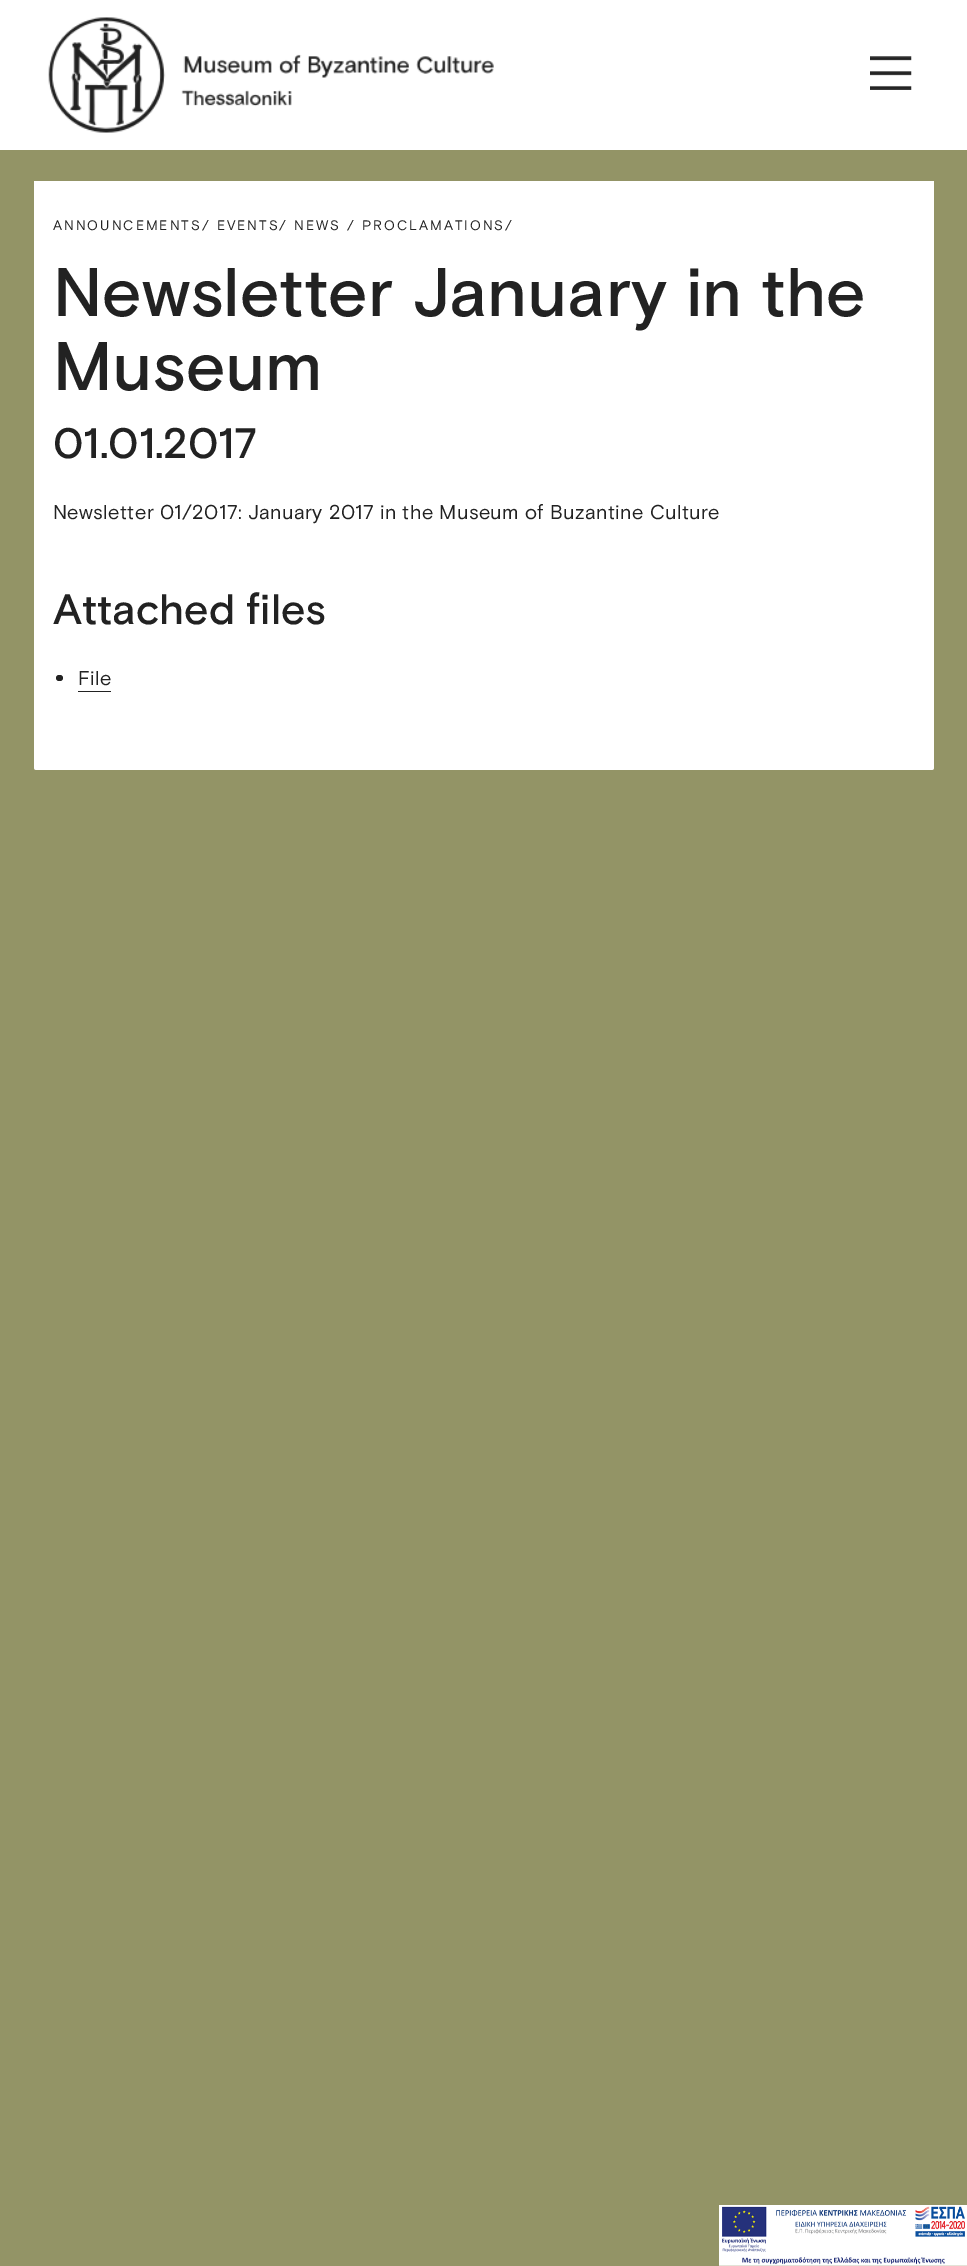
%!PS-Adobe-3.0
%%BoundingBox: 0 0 967 2266
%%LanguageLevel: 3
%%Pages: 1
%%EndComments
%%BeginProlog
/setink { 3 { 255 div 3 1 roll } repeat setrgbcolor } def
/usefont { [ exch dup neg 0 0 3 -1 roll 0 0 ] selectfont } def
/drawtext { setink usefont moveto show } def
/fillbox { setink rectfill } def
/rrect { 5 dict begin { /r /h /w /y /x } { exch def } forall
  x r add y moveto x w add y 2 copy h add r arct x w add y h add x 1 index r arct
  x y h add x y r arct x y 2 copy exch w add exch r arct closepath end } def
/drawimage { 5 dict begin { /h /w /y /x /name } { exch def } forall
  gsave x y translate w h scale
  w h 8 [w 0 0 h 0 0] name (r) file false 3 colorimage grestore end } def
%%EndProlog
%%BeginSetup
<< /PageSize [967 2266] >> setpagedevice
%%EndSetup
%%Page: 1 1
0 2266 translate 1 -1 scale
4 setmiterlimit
0 0 967 2266 255 255 255 fillbox
(assets/img1.rgb) 48 17 446 116 drawimage
(assets/img2.rgb) 870 56 42 34 drawimage
0 150 967 2116 147 148 102 fillbox
255 255 255 setink
34 181 moveto 934 181 lineto 934 767.5 lineto 934 769 933 770 931.5 770 curveto 36.5 770 lineto 35 770 34 769 34 767.5 curveto closepath fill
/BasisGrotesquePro-Regular 13.75 usefont
34 34 34 setink
53 230 moveto 2.05 0 (ANNOUNCEMENTS/ EVENTS/ NEWS / PROCLAMATIONS/) ashow
(Newsletter January in the) 53 316 /BasisGrotesquePro-Medium 68.75 34 34 34 drawtext
(Museum) 53 390 /BasisGrotesquePro-Medium 68.75 34 34 34 drawtext
(01.01.2017) 53 458 /BasisGrotesquePro-Medium 42.5 34 34 34 drawtext
/BasisGrotesquePro-Regular 20 usefont
53 519 moveto 0.4 0 (Newsletter 01/2017: January 2017 in the Museum of Buzantine Culture) ashow
(Attached files) 53 624 /BasisGrotesquePro-Medium 42.5 34 34 34 drawtext
56 675 7 6 3 rrect fill
/BasisGrotesquePro-Regular 20 usefont
78 685 moveto 0.4 0 (File) ashow
78 691 33 1 34 34 34 fillbox
(assets/img3.rgb) 719 2205 248 61 drawimage
showpage
%%EOF
